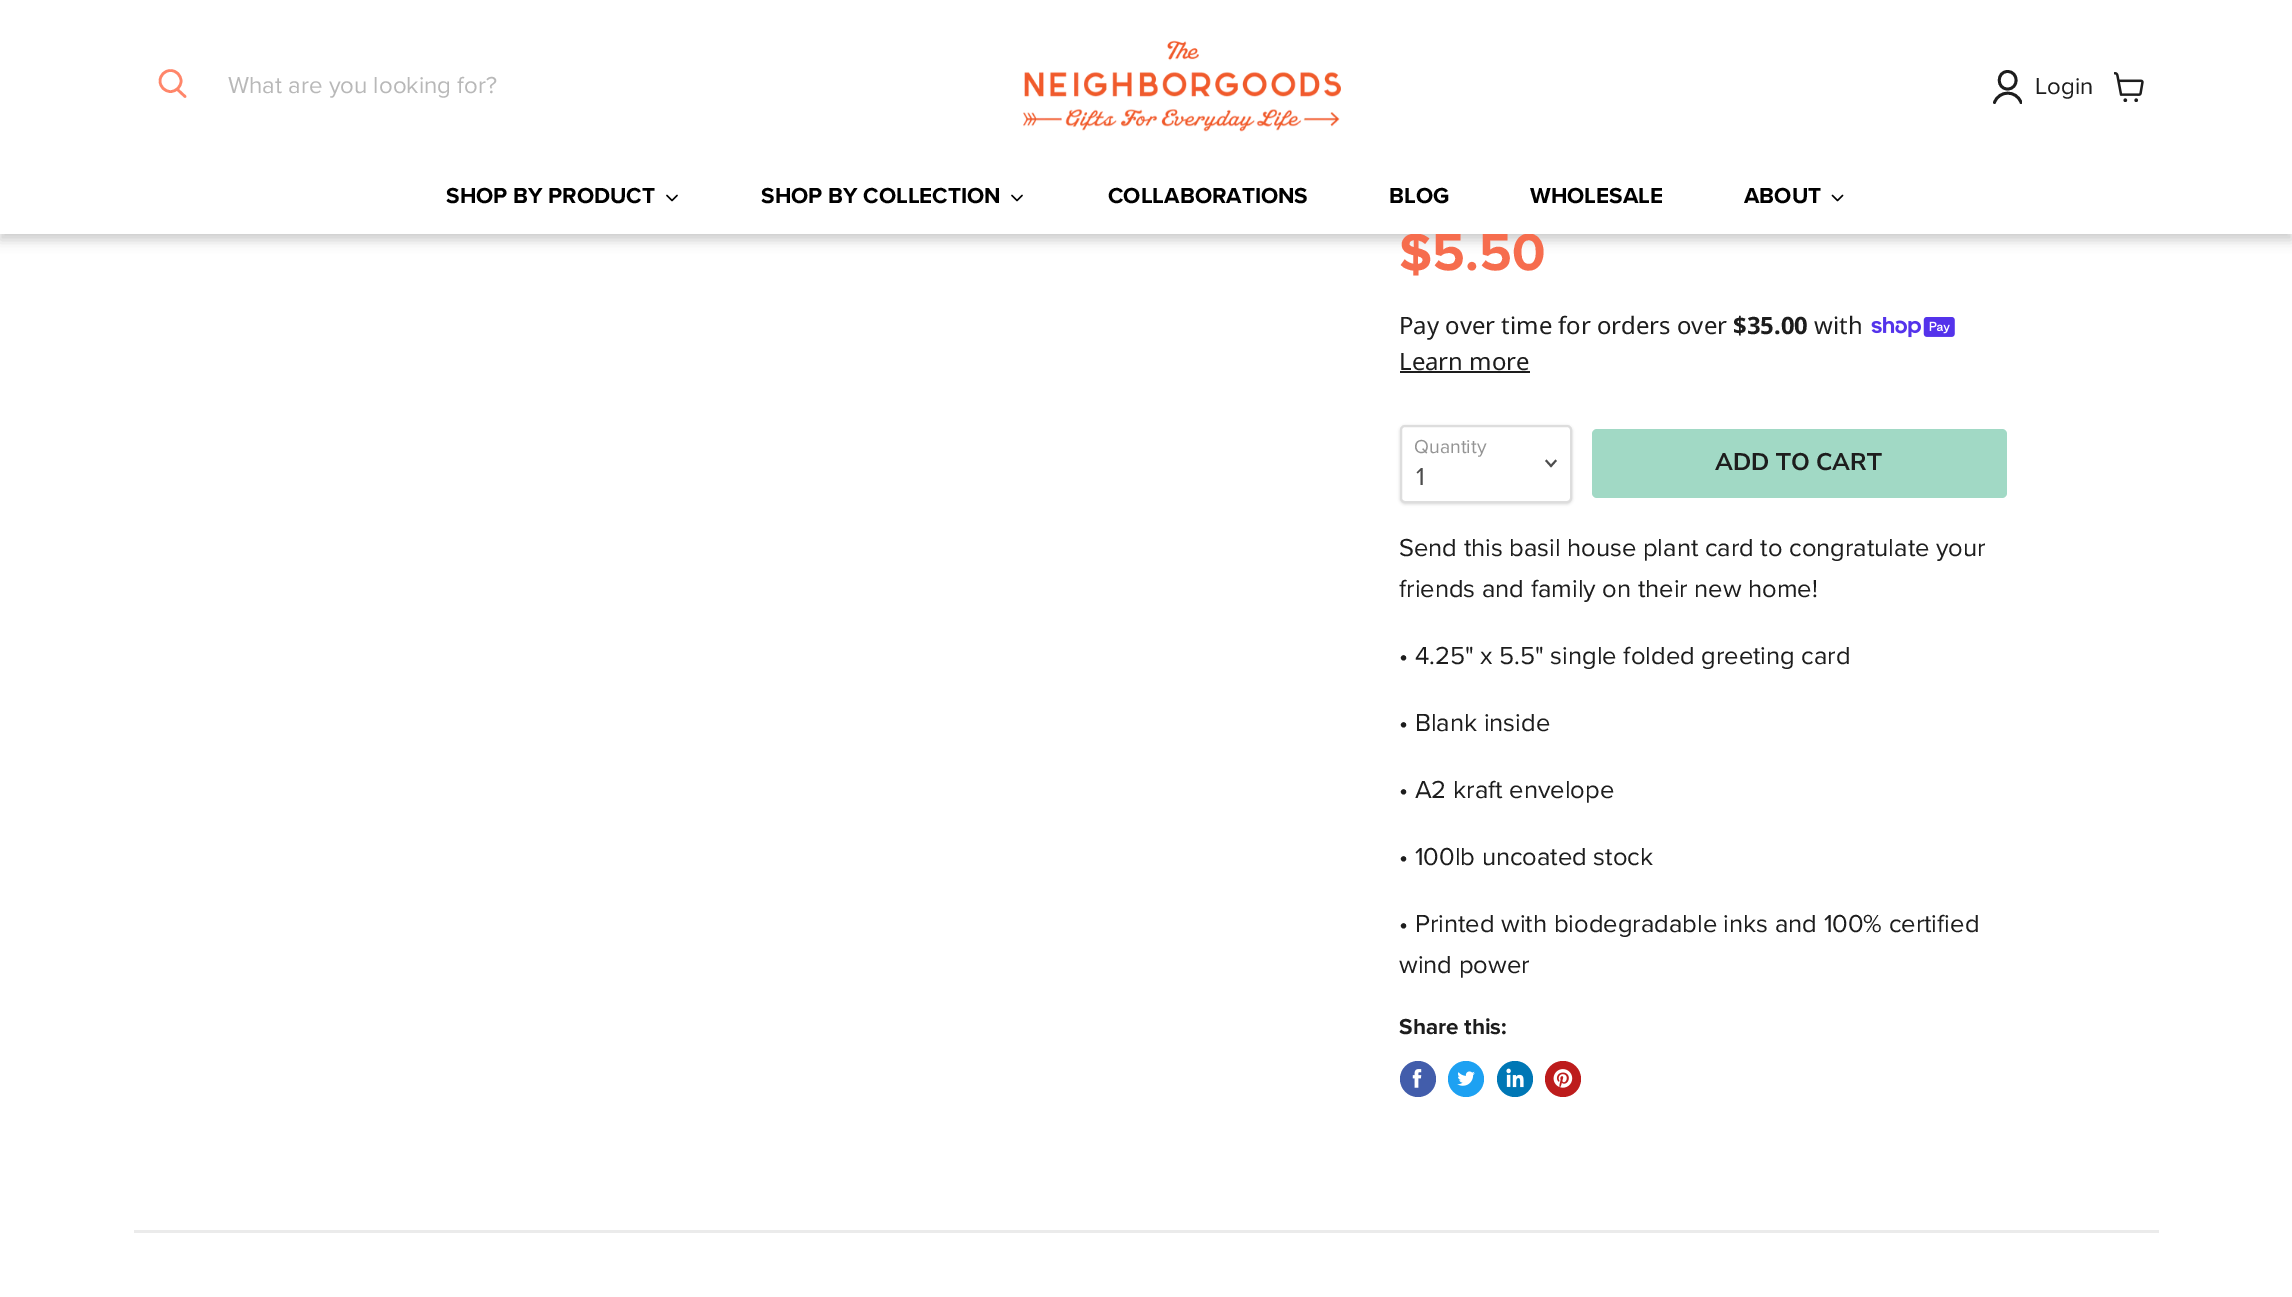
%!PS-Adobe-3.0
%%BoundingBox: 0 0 2292 1297
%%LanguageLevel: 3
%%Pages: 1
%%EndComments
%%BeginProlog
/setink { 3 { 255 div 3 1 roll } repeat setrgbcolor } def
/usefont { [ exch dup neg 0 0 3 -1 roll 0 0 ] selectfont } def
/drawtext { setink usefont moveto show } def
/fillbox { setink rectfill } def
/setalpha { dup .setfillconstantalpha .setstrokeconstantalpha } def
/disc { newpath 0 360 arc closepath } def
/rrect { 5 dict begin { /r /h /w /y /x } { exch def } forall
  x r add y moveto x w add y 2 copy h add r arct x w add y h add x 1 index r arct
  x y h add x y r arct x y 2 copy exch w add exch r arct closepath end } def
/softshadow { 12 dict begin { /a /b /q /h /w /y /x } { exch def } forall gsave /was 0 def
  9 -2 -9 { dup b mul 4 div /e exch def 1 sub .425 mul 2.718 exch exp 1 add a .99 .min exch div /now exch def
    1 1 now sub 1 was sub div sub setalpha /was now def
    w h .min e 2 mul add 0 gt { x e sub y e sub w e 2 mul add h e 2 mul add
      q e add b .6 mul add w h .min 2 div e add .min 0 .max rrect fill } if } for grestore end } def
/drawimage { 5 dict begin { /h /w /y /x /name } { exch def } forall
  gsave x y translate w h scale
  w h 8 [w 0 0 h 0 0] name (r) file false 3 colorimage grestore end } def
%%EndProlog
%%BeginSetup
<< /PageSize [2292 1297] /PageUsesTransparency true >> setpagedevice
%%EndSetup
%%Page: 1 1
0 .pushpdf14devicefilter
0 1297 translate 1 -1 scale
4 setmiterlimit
0 0 2292 1297 255 255 255 fillbox
0 0 0 setink
0 6 2292 234 0 6 0.2 softshadow
($5.50) 1399 270 /ProximaNova-Bold 54 246 109 78 drawtext
0 0 2292 234 255 255 255 fillbox
255 134 106 setink
2.6 setlinewidth
1 setlinecap
185 96.5 moveto 177.5 89.5 lineto stroke
0 setlinecap
170.5 81 10.5 disc stroke
(What are you looking for?) 228 93 /ProximaNova-Regular 24 184 184 184 drawtext
(assets/img1.rgb) 1023 40 318 92 drawimage
29 29 29 setink
2.8 setlinewidth
1 setlinecap
1 setlinejoin
2007.5 89 moveto 2019 89 2019 71.5 2007.5 71.5 curveto 1996.5 71.5 1996.5 89 2007.5 89 curveto closepath stroke
gsave
1992 69 30 36 rectclip
2021 102.5 moveto 2016.5 90 1999 90 1994.5 102.5 curveto stroke
grestore
(Login) 2035 94 /ProximaNova-Regular 23.9 29 29 29 drawtext
(assets/img2.rgb) 2114 72 30 30 drawimage
(SHOP BY PRODUCT) 446 203 /ProximaNova-Bold 22.5 0 0 0 drawtext
(assets/img3.rgb) 666 194 12 8 drawimage
(SHOP BY COLLECTION) 761 203 /ProximaNova-Bold 22.5 0 0 0 drawtext
(assets/img3.rgb) 1011 194 12 8 drawimage
(COLLABORATIONS) 1108 203 /ProximaNova-Bold 22.5 0 0 0 drawtext
(BLOG) 1389 203 /ProximaNova-Bold 22.5 0 0 0 drawtext
(WHOLESALE) 1530 203 /ProximaNova-Bold 22.5 0 0 0 drawtext
(ABOUT) 1744 203 /ProximaNova-Bold 22.5 0 0 0 drawtext
(assets/img4.rgb) 1831 194 13 8 drawimage
(Pay over time for orders over) 1399 334 /NotoSans-Regular 23.9 29 29 29 drawtext
($35.00) 1733 334 /NotoSans-Bold 23.9 29 29 29 drawtext
(with) 1814 334 /NotoSans-Regular 23.9 29 29 29 drawtext
(assets/img5.rgb) 1871 317 84 21 drawimage
(Learn more) 1399 370 /NotoSans-Regular 23.9 29 29 29 drawtext
1400 371 130 2 29 29 29 fillbox
0 0 0 setink
1400 426 172 78 5 1.5 0.15 softshadow
255 255 255 setink
1401 426 170 76 4 rrect gsave fill grestore
221 221 221 setink
2 setlinewidth
0 setlinecap
0 setlinejoin
stroke
(Quantity) 1414 453 /ProximaNova-Regular 19.5 148 148 148 drawtext
77 77 77 setink
1.9 setlinewidth
2 setlinecap
1551 466 moveto 1555.5 461 lineto 1551 466 moveto 1546.5 461 lineto stroke
(1) 1416 485 /ProximaNova-Regular 25.5 77 77 77 drawtext
161 217 197 setink
1592 429 415 69 5 rrect fill
(ADD TO CART) 1715 470 /NunitoSans-Bold 24 29 29 29 drawtext
(Send this basil house plant card to congratulate your) 1399 556 /ProximaNova-Regular 25.5 29 29 29 drawtext
(friends and family on their new home!) 1399 597 /ProximaNova-Regular 25.5 29 29 29 drawtext
(• 4.25" x 5.5" single folded greeting card) 1399 664 /ProximaNova-Regular 25.5 29 29 29 drawtext
(• Blank inside) 1399 731 /ProximaNova-Regular 25.5 29 29 29 drawtext
(• A2 kraft envelope) 1399 798 /ProximaNova-Regular 25.5 29 29 29 drawtext
(• 100lb uncoated stock) 1399 865 /ProximaNova-Regular 25.5 29 29 29 drawtext
(• Printed with biodegradable inks and 100% certified) 1399 932 /ProximaNova-Regular 25.5 29 29 29 drawtext
(wind power) 1399 973 /ProximaNova-Regular 25.5 29 29 29 drawtext
(Share this:) 1399 1034 /ProximaNova-Bold 22.5 29 29 29 drawtext
66 93 171 setink
1418 1079 18 disc fill
(assets/img6.rgb) 1412 1069 10 19 drawimage
29 161 242 setink
1466 1079 18 disc fill
(assets/img7.rgb) 1457 1071 18 15 drawimage
0 119 181 setink
1515 1079 18 disc fill
(assets/img8.rgb) 1506 1068 18 20 drawimage
189 28 28 setink
1563 1079 18 disc fill
(assets/img9.rgb) 1553 1069 20 19 drawimage
134 1230 2025 3 235 235 235 fillbox
.poppdf14devicefilter showpage
%%EOF
